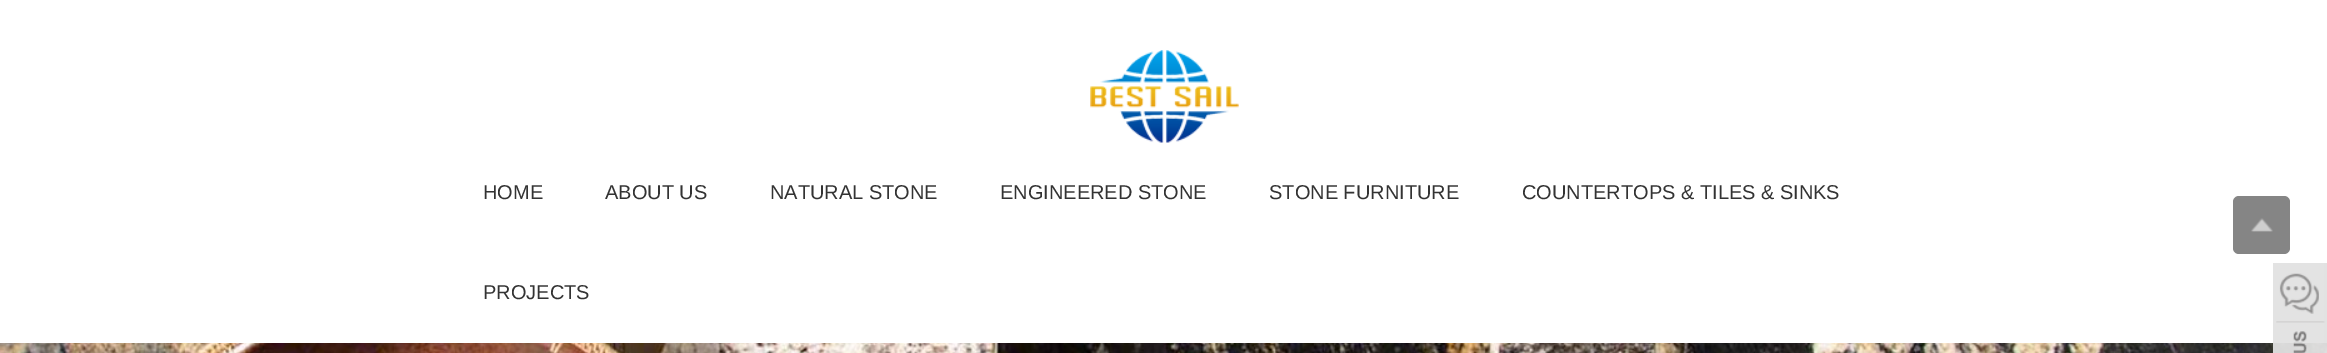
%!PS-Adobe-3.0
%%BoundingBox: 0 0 2327 353
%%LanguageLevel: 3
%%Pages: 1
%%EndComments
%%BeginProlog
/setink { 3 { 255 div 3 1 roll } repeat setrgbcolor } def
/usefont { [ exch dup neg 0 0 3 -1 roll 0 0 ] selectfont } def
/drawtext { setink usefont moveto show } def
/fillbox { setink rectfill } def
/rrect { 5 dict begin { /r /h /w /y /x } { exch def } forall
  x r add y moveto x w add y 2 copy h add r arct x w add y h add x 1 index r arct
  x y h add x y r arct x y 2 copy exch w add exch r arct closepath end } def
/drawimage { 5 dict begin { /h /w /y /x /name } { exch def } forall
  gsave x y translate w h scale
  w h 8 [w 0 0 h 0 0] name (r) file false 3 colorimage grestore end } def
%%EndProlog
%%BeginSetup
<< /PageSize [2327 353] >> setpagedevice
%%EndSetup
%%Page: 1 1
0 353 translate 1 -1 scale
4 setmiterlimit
0 0 2327 353 255 255 255 fillbox
(assets/img1.rgb) 1090 50 149 93 drawimage
(HOME) 483 199 /LiberationSans-Regular 20 51 51 51 drawtext
(ABOUT US) 605 199 /LiberationSans-Regular 20 51 51 51 drawtext
(NATURAL STONE) 770 199 /LiberationSans-Regular 20 51 51 51 drawtext
(ENGINEERED STONE) 1000 199 /LiberationSans-Regular 20 51 51 51 drawtext
(STONE FURNITURE) 1269 199 /LiberationSans-Regular 20 51 51 51 drawtext
(COUNTERTOPS & TILES & SINKS) 1522 199 /LiberationSans-Regular 20 51 51 51 drawtext
(PROJECTS) 483 299 /LiberationSans-Regular 20 51 51 51 drawtext
133 133 133 setink
2233 196 57 58 6 rrect fill
(assets/img2.rgb) 2251 218 22 14 drawimage
(assets/img4.rgb) 0 343 2327 10 drawimage
(assets/img3.rgb) 2273 263 54 90 drawimage
showpage
%%EOF
